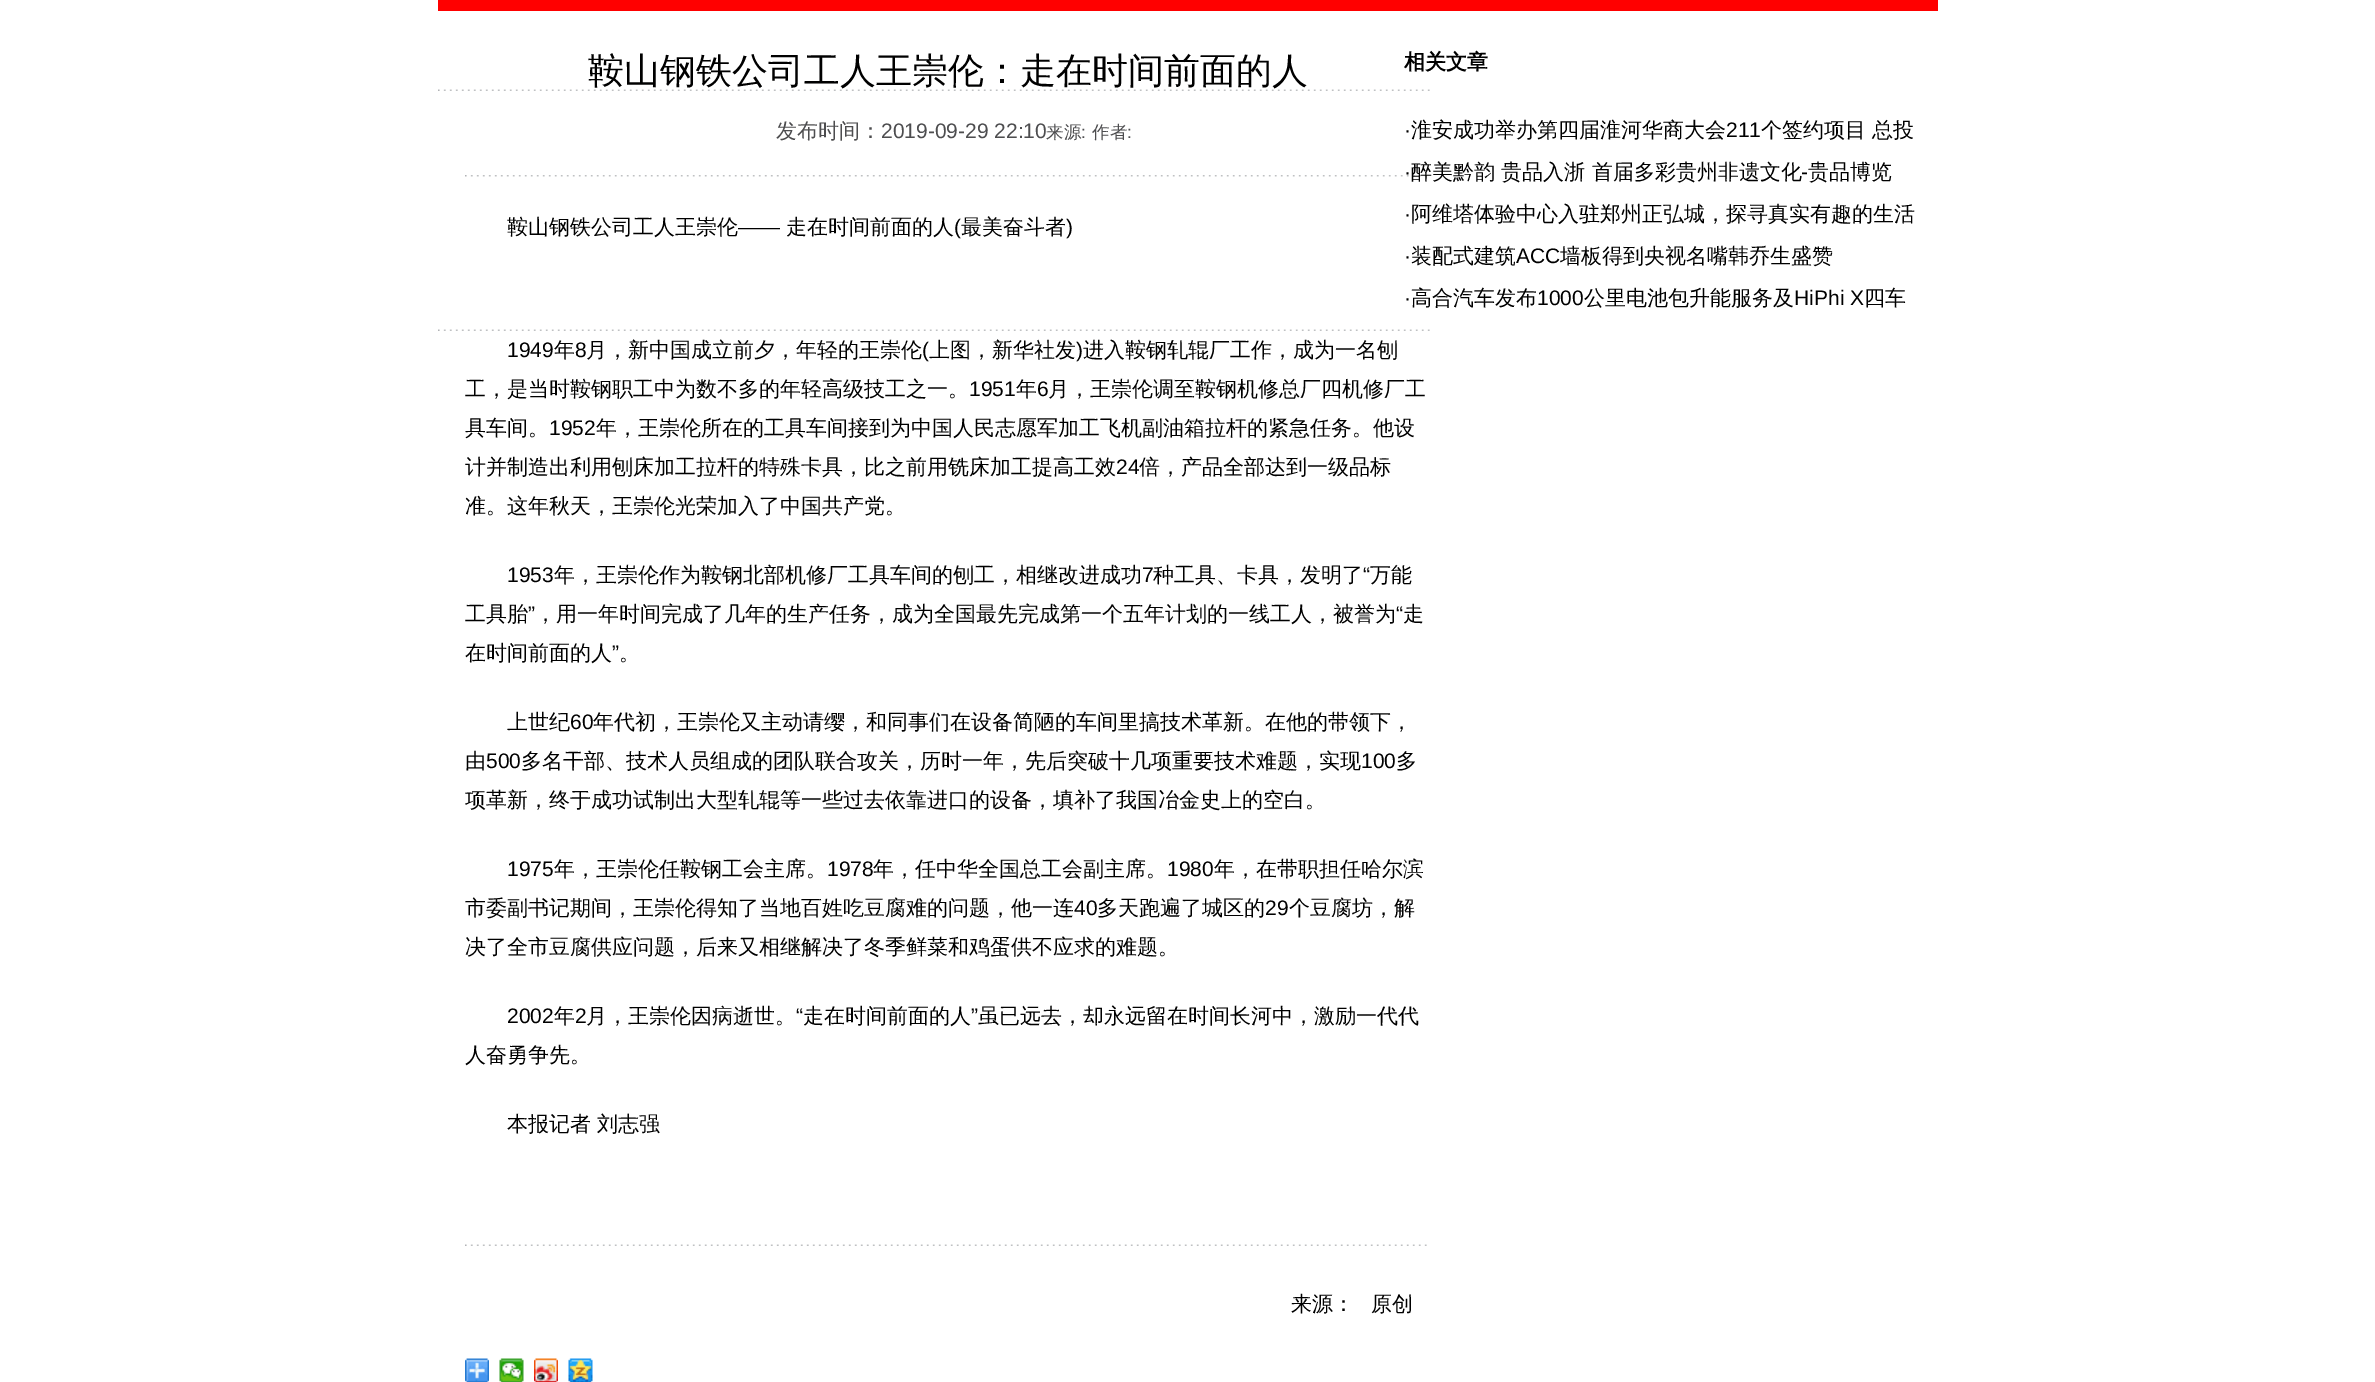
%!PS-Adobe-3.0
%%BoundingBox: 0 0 2375 1382
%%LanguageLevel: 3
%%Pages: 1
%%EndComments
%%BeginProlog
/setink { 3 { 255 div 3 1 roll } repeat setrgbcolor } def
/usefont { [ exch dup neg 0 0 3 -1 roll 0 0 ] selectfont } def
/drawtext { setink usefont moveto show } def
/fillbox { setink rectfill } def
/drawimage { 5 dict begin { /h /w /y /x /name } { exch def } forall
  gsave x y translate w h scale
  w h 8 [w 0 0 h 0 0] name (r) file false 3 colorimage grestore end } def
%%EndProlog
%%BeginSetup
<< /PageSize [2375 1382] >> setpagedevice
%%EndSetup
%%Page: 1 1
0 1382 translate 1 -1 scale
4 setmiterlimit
0 0 2375 1382 255 255 255 fillbox
438 0 1500 11 255 0 0 fillbox
(鞍山钢铁公司工人王崇伦：走在时间前面的人) 588 83 /WenQuanYiZenHei-Medium 36 0 0 0 drawtext
(发布时间：) 776 138 /WenQuanYiZenHei-Medium 21 77 77 79 drawtext
(2019-09-29 22:10) 881 138 /LiberationSans-Regular 21 77 77 79 drawtext
(来源) 1046 138 /WenQuanYiZenHei-Medium 17.5 77 77 79 drawtext
(:) 1081 138 /LiberationSans-Regular 17.5 77 77 79 drawtext
(作者) 1092 138 /WenQuanYiZenHei-Medium 17.5 77 77 79 drawtext
(:) 1127 138 /LiberationSans-Regular 17.5 77 77 79 drawtext
(assets/img1.rgb) 465 175 962 2 drawimage
(鞍山钢铁公司工人王崇伦) 507 234 /WenQuanYiZenHei-Medium 21 0 0 0 drawtext
(——) 738 234 /LiberationSans-Regular 21 0 0 0 drawtext
(走在时间前面的人) 786 234 /WenQuanYiZenHei-Medium 21 0 0 0 drawtext
(\() 954 234 /LiberationSans-Regular 21 0 0 0 drawtext
(最美奋斗者) 961 234 /WenQuanYiZenHei-Medium 21 0 0 0 drawtext
(\)) 1066 234 /LiberationSans-Regular 21 0 0 0 drawtext
(1949) 507 357 /LiberationSans-Regular 21 0 0 0 drawtext
(年) 554 357 /WenQuanYiZenHei-Medium 21 0 0 0 drawtext
(8) 575 357 /LiberationSans-Regular 21 0 0 0 drawtext
(月，新中国成立前夕，年轻的王崇伦) 586 357 /WenQuanYiZenHei-Medium 21 0 0 0 drawtext
(\() 922 357 /LiberationSans-Regular 21 0 0 0 drawtext
(上图，新华社发) 929 357 /WenQuanYiZenHei-Medium 21 0 0 0 drawtext
(\)) 1076 357 /LiberationSans-Regular 21 0 0 0 drawtext
(进入鞍钢轧辊厂工作，成为一名刨) 1083 357 /WenQuanYiZenHei-Medium 21 0 0 0 drawtext
(工，是当时鞍钢职工中为数不多的年轻高级技工之一。) 465 396 /WenQuanYiZenHei-Medium 21 0 0 0 drawtext
(1951) 969 396 /LiberationSans-Regular 21 0 0 0 drawtext
(年) 1016 396 /WenQuanYiZenHei-Medium 21 0 0 0 drawtext
(6) 1037 396 /LiberationSans-Regular 21 0 0 0 drawtext
(月，王崇伦调至鞍钢机修总厂四机修厂工) 1048 396 /WenQuanYiZenHei-Medium 21 0 0 0 drawtext
(具车间。) 465 435 /WenQuanYiZenHei-Medium 21 0 0 0 drawtext
(1952) 549 435 /LiberationSans-Regular 21 0 0 0 drawtext
(年，王崇伦所在的工具车间接到为中国人民志愿军加工飞机副油箱拉杆的紧急任务。他设) 596 435 /WenQuanYiZenHei-Medium 21 0 0 0 drawtext
(计并制造出利用刨床加工拉杆的特殊卡具，比之前用铣床加工提高工效) 465 474 /WenQuanYiZenHei-Medium 21 0 0 0 drawtext
(24) 1116 474 /LiberationSans-Regular 21 0 0 0 drawtext
(倍，产品全部达到一级品标) 1139 474 /WenQuanYiZenHei-Medium 21 0 0 0 drawtext
(准。这年秋天，王崇伦光荣加入了中国共产党。) 465 513 /WenQuanYiZenHei-Medium 21 0 0 0 drawtext
(1953) 507 582 /LiberationSans-Regular 21 0 0 0 drawtext
(年，王崇伦作为鞍钢北部机修厂工具车间的刨工，相继改进成功) 554 582 /WenQuanYiZenHei-Medium 21 0 0 0 drawtext
(7) 1142 582 /LiberationSans-Regular 21 0 0 0 drawtext
(种工具、卡具，发明了) 1153 582 /WenQuanYiZenHei-Medium 21 0 0 0 drawtext
(“) 1363 582 /LiberationSans-Regular 21 0 0 0 drawtext
(万能) 1370 582 /WenQuanYiZenHei-Medium 21 0 0 0 drawtext
(工具胎) 465 621 /WenQuanYiZenHei-Medium 21 0 0 0 drawtext
(”) 528 621 /LiberationSans-Regular 21 0 0 0 drawtext
(，用一年时间完成了几年的生产任务，成为全国最先完成第一个五年计划的一线工人，被誉为) 535 621 /WenQuanYiZenHei-Medium 21 0 0 0 drawtext
(“) 1396 621 /LiberationSans-Regular 21 0 0 0 drawtext
(走) 1403 621 /WenQuanYiZenHei-Medium 21 0 0 0 drawtext
(在时间前面的人) 465 660 /WenQuanYiZenHei-Medium 21 0 0 0 drawtext
(”) 612 660 /LiberationSans-Regular 21 0 0 0 drawtext
(。) 619 660 /WenQuanYiZenHei-Medium 21 0 0 0 drawtext
(上世纪) 507 729 /WenQuanYiZenHei-Medium 21 0 0 0 drawtext
(60) 570 729 /LiberationSans-Regular 21 0 0 0 drawtext
(年代初，王崇伦又主动请缨，和同事们在设备简陋的车间里搞技术革新。在他的带领下，) 593 729 /WenQuanYiZenHei-Medium 21 0 0 0 drawtext
(由) 465 768 /WenQuanYiZenHei-Medium 21 0 0 0 drawtext
(500) 486 768 /LiberationSans-Regular 21 0 0 0 drawtext
(多名干部、技术人员组成的团队联合攻关，历时一年，先后突破十几项重要技术难题，实现) 521 768 /WenQuanYiZenHei-Medium 21 0 0 0 drawtext
(100) 1361 768 /LiberationSans-Regular 21 0 0 0 drawtext
(多) 1396 768 /WenQuanYiZenHei-Medium 21 0 0 0 drawtext
(项革新，终于成功试制出大型轧辊等一些过去依靠进口的设备，填补了我国冶金史上的空白。) 465 807 /WenQuanYiZenHei-Medium 21 0 0 0 drawtext
(1975) 507 876 /LiberationSans-Regular 21 0 0 0 drawtext
(年，王崇伦任鞍钢工会主席。) 554 876 /WenQuanYiZenHei-Medium 21 0 0 0 drawtext
(1978) 827 876 /LiberationSans-Regular 21 0 0 0 drawtext
(年，任中华全国总工会副主席。) 873 876 /WenQuanYiZenHei-Medium 21 0 0 0 drawtext
(1980) 1167 876 /LiberationSans-Regular 21 0 0 0 drawtext
(年，在带职担任哈尔滨) 1214 876 /WenQuanYiZenHei-Medium 21 0 0 0 drawtext
(市委副书记期间，王崇伦得知了当地百姓吃豆腐难的问题，他一连) 465 915 /WenQuanYiZenHei-Medium 21 0 0 0 drawtext
(40) 1074 915 /LiberationSans-Regular 21 0 0 0 drawtext
(多天跑遍了城区的) 1097 915 /WenQuanYiZenHei-Medium 21 0 0 0 drawtext
(29) 1265 915 /LiberationSans-Regular 21 0 0 0 drawtext
(个豆腐坊，解) 1289 915 /WenQuanYiZenHei-Medium 21 0 0 0 drawtext
(决了全市豆腐供应问题，后来又相继解决了冬季鲜菜和鸡蛋供不应求的难题。) 465 954 /WenQuanYiZenHei-Medium 21 0 0 0 drawtext
(2002) 507 1023 /LiberationSans-Regular 21 0 0 0 drawtext
(年) 554 1023 /WenQuanYiZenHei-Medium 21 0 0 0 drawtext
(2) 575 1023 /LiberationSans-Regular 21 0 0 0 drawtext
(月，王崇伦因病逝世。) 586 1023 /WenQuanYiZenHei-Medium 21 0 0 0 drawtext
(“) 796 1023 /LiberationSans-Regular 21 0 0 0 drawtext
(走在时间前面的人) 803 1023 /WenQuanYiZenHei-Medium 21 0 0 0 drawtext
(”) 971 1023 /LiberationSans-Regular 21 0 0 0 drawtext
(虽已远去，却永远留在时间长河中，激励一代代) 978 1023 /WenQuanYiZenHei-Medium 21 0 0 0 drawtext
(人奋勇争先。) 465 1062 /WenQuanYiZenHei-Medium 21 0 0 0 drawtext
(本报记者) 507 1131 /WenQuanYiZenHei-Medium 21 0 0 0 drawtext
(刘志强) 597 1131 /WenQuanYiZenHei-Medium 21 0 0 0 drawtext
(assets/img2.rgb) 465 1244 962 2 drawimage
(来源：) 1291 1311 /WenQuanYiZenHei-Medium 21 0 0 0 drawtext
(原创) 1371 1311 /WenQuanYiZenHei-Medium 21 0 0 0 drawtext
(assets/img3.rgb) 465 1358 24 24 drawimage
(assets/img4.rgb) 499 1358 25 24 drawimage
(assets/img5.rgb) 534 1358 24 24 drawimage
(assets/img6.rgb) 568 1358 25 24 drawimage
(相关文章) 1404 69 /WenQuanYiZenHei-Bold 21 0 0 0 drawtext
(assets/img7.rgb) 438 89 992 2 drawimage
(·) 1404 137 /LiberationSans-Regular 21 0 0 0 drawtext
(淮安成功举办第四届淮河华商大会) 1411 137 /WenQuanYiZenHei-Medium 21 0 0 0 drawtext
(211) 1726 137 /LiberationSans-Regular 21 0 0 0 drawtext
(个签约项目 总投) 1761 137 /WenQuanYiZenHei-Medium 21 0 0 0 drawtext
(·) 1404 179 /LiberationSans-Regular 21 0 0 0 drawtext
(醉美黔韵 贵品入浙 首届多彩贵州非遗文化) 1411 179 /WenQuanYiZenHei-Medium 21 0 0 0 drawtext
(-) 1801 179 /LiberationSans-Regular 21 0 0 0 drawtext
(贵品博览) 1808 179 /WenQuanYiZenHei-Medium 21 0 0 0 drawtext
(·) 1404 221 /LiberationSans-Regular 21 0 0 0 drawtext
(阿维塔体验中心入驻郑州正弘城，探寻真实有趣的生活) 1411 221 /WenQuanYiZenHei-Medium 21 0 0 0 drawtext
(·) 1404 263 /LiberationSans-Regular 21 0 0 0 drawtext
(装配式建筑) 1411 263 /WenQuanYiZenHei-Medium 21 0 0 0 drawtext
(ACC) 1516 263 /LiberationSans-Regular 21 0 0 0 drawtext
(墙板得到央视名嘴韩乔生盛赞) 1560 263 /WenQuanYiZenHei-Medium 21 0 0 0 drawtext
(·) 1404 305 /LiberationSans-Regular 21 0 0 0 drawtext
(高合汽车发布) 1411 305 /WenQuanYiZenHei-Medium 21 0 0 0 drawtext
(1000) 1537 305 /LiberationSans-Regular 21 0 0 0 drawtext
(公里电池包升能服务及) 1584 305 /WenQuanYiZenHei-Medium 21 0 0 0 drawtext
(HiPhi X) 1794 305 /LiberationSans-Regular 21 0 0 0 drawtext
(四车) 1864 305 /WenQuanYiZenHei-Medium 21 0 0 0 drawtext
(assets/img7.rgb) 438 329 992 2 drawimage
showpage
%%EOF
